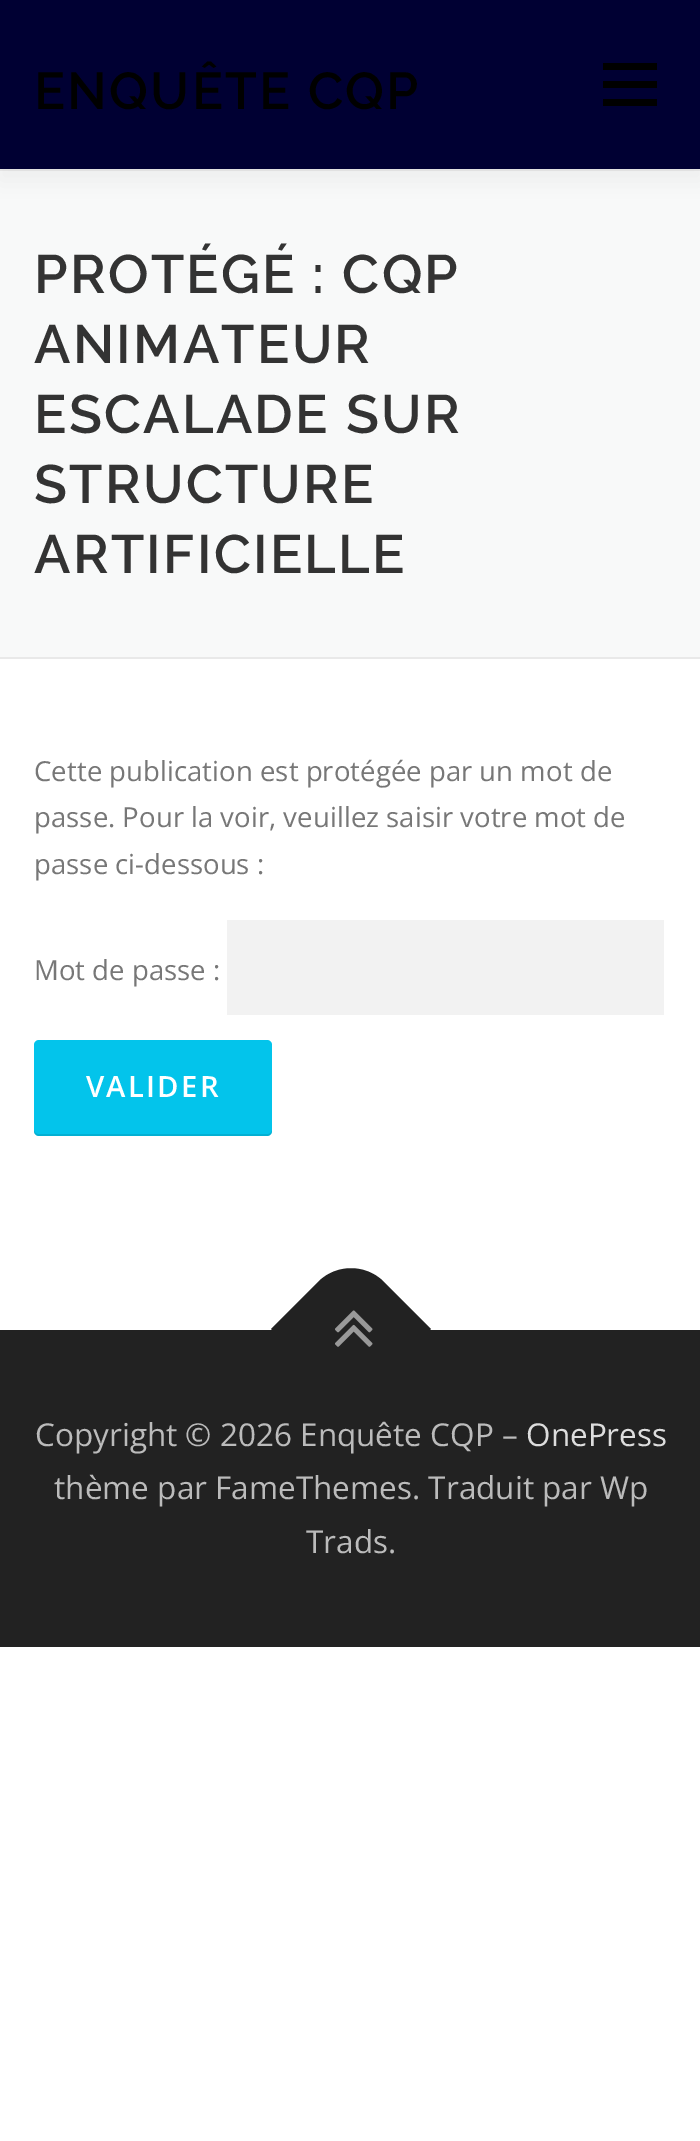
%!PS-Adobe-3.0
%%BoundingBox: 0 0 700 2141
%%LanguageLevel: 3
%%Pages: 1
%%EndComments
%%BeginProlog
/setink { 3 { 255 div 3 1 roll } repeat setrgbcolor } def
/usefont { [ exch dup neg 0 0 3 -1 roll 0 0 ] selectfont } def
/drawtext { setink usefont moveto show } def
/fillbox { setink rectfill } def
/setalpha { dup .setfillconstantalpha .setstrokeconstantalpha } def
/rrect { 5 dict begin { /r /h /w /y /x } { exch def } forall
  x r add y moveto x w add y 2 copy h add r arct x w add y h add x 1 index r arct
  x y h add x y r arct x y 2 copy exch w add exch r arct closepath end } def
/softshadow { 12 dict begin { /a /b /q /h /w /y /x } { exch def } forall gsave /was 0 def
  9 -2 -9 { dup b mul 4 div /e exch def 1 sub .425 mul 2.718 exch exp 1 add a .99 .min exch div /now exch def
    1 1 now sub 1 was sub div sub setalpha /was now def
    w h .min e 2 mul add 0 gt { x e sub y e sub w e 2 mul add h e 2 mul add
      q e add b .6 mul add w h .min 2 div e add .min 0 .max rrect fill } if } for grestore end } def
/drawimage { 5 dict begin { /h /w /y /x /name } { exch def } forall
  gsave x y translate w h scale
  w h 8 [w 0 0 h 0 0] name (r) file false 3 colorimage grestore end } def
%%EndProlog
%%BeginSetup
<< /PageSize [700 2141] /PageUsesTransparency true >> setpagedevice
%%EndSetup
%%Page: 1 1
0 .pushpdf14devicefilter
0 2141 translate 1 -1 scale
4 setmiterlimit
0 0 700 2141 255 255 255 fillbox
0 171 700 486 248 249 249 fillbox
0 169 700 2 233 233 233 fillbox
50 50 50 setink
0 11 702 169 0 11 0.06 softshadow
0 0 700 169 0 0 51 fillbox
/Raleway-SemiBold 51.75 usefont
0 0 0 setink
34 109 moveto 2.25 0 (ENQUÊTE CQP) ashow
603 81 54 7 0 0 0 fillbox
603 63 54 7 0 0 0 fillbox
603 99 54 7 0 0 0 fillbox
0 657 700 2 233 233 233 fillbox
/Raleway-SemiBold 54 usefont
51 51 51 setink
34 293 moveto 2.25 0 (PROTÉGÉ : CQP) ashow
34 363 moveto 2.25 0 (ANIMATEUR) ashow
34 433 moveto 2.25 0 (ESCALADE SUR) ashow
34 503 moveto 2.25 0 (STRUCTURE) ashow
34 573 moveto 2.25 0 (ARTIFICIELLE) ashow
(Cette publication est protégée par un mot de) 34 781 /OpenSans-Regular 27.6 119 119 119 drawtext
(passe. Pour la voir, veuillez saisir votre mot de) 34 827 /OpenSans-Regular 27.6 119 119 119 drawtext
(passe ci-dessous :) 34 874 /OpenSans-Regular 27.6 119 119 119 drawtext
(Mot de passe :) 34 980 /OpenSans-Regular 27.6 119 119 119 drawtext
227 920 437 95 242 242 242 fillbox
3 196 235 setink
34 1040 238 96 5 rrect fill
0.1 setalpha
0 0 0 setink
34 1130 moveto 34 1131 lineto 34 1134 36 1136 39 1136 curveto 267 1136 lineto 270 1136 272 1134 272 1131 curveto 272 1130 lineto 272 1132 270 1134 268 1134 curveto 38 1134 lineto 36 1134 34 1132 34 1130 curveto closepath fill
/OpenSans-SemiBold 29.25 usefont
1 setalpha
255 255 255 setink
86 1097 moveto 2.25 0 (VALIDER) ashow
0 1330 700 317 34 34 34 fillbox
271 1329 moveto 319 1281 lineto 337 1264 365 1264 383 1281 curveto 431 1329 lineto 351 1408 lineto closepath fill
(assets/img1.rgb) 335 1310 38 37 drawimage
(Copyright © 2026 Enquête CQP –) 35 1446 /OpenSans-Regular 31.5 187 187 187 drawtext
(OnePress) 526 1446 /OpenSans-Regular 31.5 221 221 221 drawtext
(thème par FameThemes. Traduit par Wp) 54 1499 /OpenSans-Regular 31.5 187 187 187 drawtext
(Trads.) 306 1553 /OpenSans-Regular 31.5 187 187 187 drawtext
.poppdf14devicefilter showpage
%%EOF
